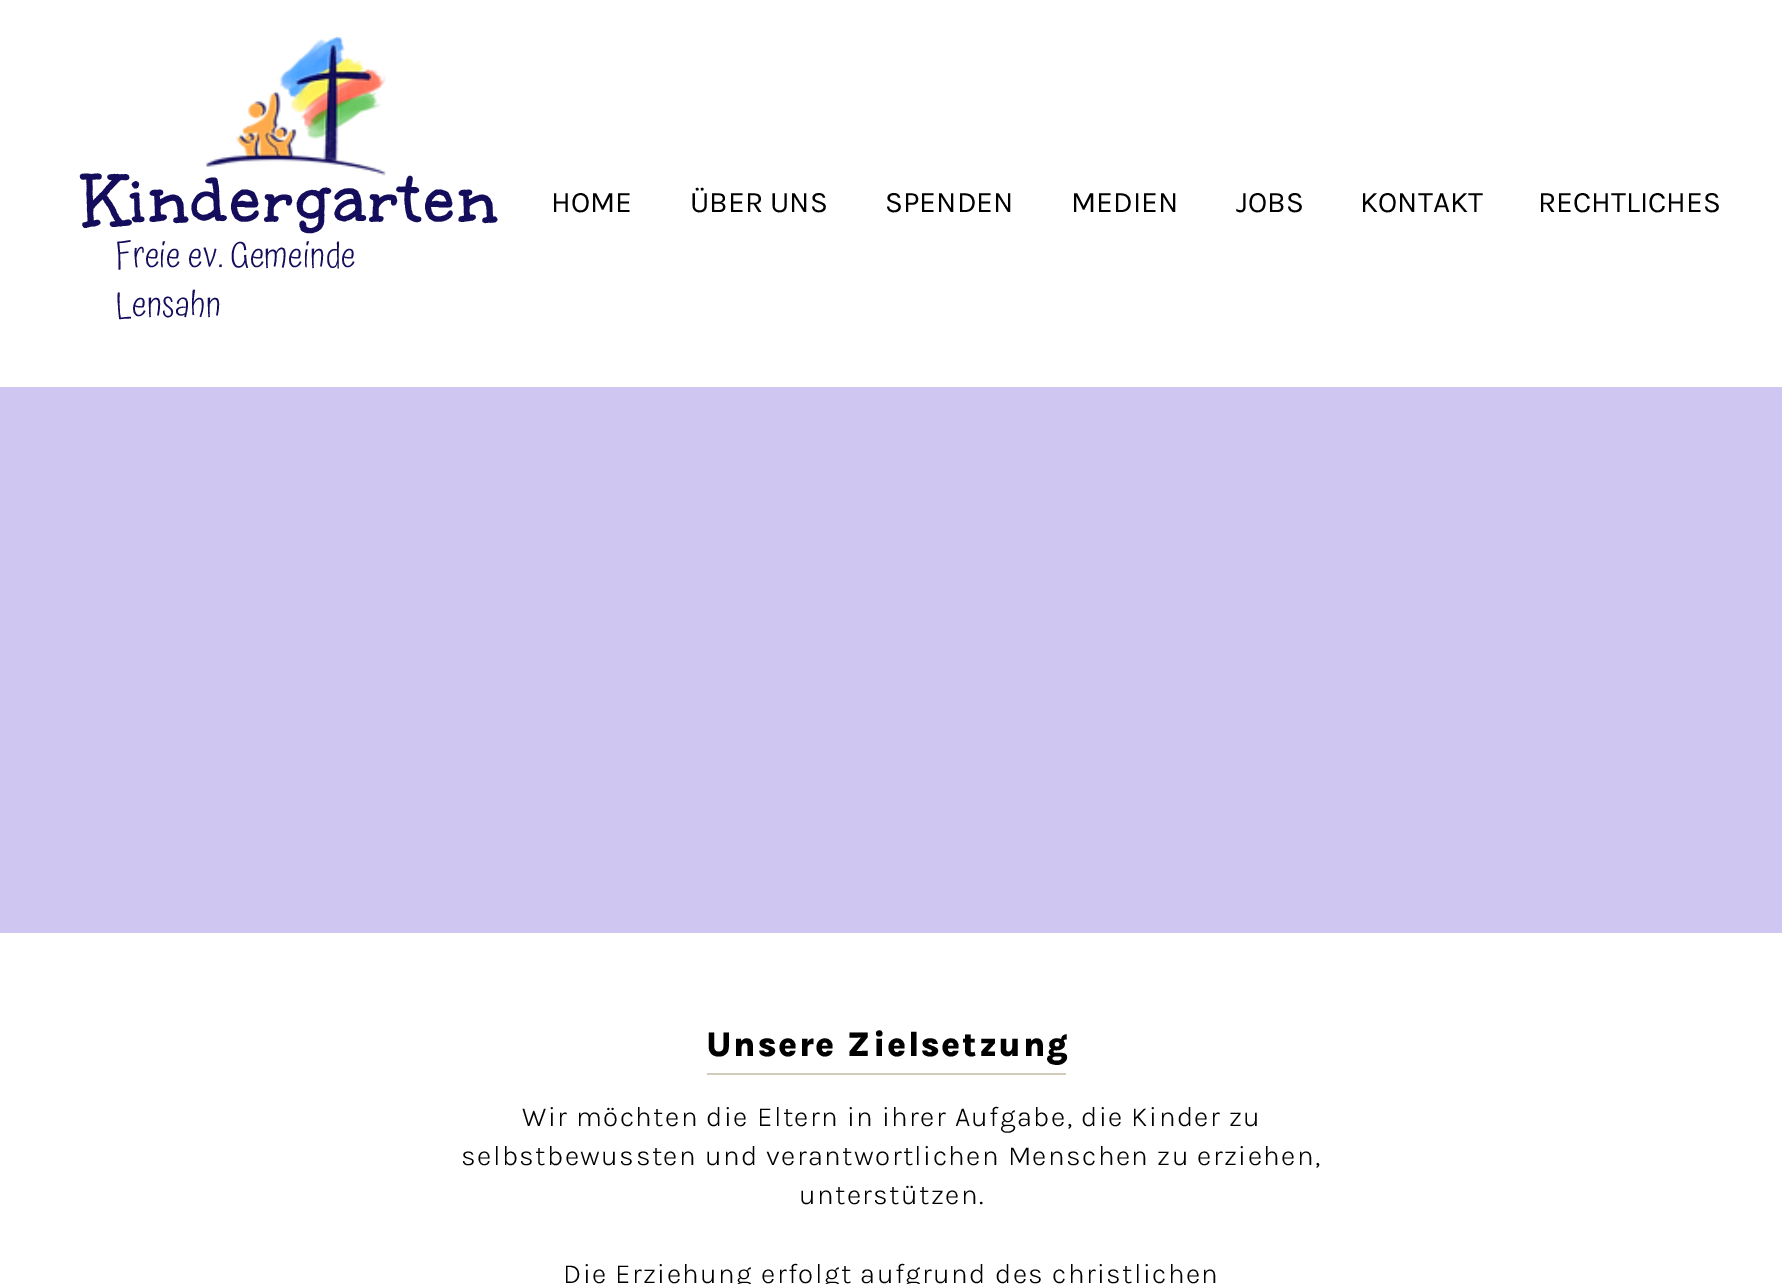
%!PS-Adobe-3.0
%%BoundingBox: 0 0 1782 1284
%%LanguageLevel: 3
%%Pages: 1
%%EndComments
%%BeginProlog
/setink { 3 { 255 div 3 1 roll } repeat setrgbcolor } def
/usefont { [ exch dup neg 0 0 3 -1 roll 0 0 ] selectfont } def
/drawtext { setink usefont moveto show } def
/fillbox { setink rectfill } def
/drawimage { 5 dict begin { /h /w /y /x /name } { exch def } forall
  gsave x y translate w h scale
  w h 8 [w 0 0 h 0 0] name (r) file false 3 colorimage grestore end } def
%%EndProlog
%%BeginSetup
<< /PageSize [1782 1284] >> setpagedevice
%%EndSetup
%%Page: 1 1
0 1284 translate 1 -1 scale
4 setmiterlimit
0 0 1782 1284 255 255 255 fillbox
/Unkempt-Bold 71.75 usefont
19 13 91 setink
81 226 moveto 2.1 0 (Kindergarten) ashow
(assets/img1.rgb) 206 37 180 139 drawimage
/Atma-Light 35 usefont
115 267 moveto 0.3 0 (Freie ev. Gemeinde) ashow
115 316 moveto 0.3 0 (Lensahn) ashow
(HOME) 551 212 /Karla-Regular 29.75 0 0 0 drawtext
(ÜBER UNS) 690 212 /Karla-Regular 29.75 0 0 0 drawtext
(SPENDEN) 885 212 /Karla-Regular 29.75 0 0 0 drawtext
(MEDIEN) 1071 212 /Karla-Regular 29.75 0 0 0 drawtext
(JOBS) 1236 212 /Karla-Regular 29.75 0 0 0 drawtext
(KONTAKT) 1360 212 /Karla-Regular 29.75 0 0 0 drawtext
(RECHTLICHES) 1538 212 /Karla-Regular 29.75 0 0 0 drawtext
0 387 1782 546 207 199 242 fillbox
/Karla-ExtraBold 35 usefont
0 0 0 setink
706 1056 moveto 1.75 0 (Unsere Zielsetzung) ashow
707 1073 359 2 211 204 186 fillbox
/Karla-Light 28 usefont
0 0 0 setink
522 1126 moveto 1.4 0 (Wir möchten die Eltern in ihrer Aufgabe, die Kinder zu) ashow
461 1165 moveto 1.4 0 (selbstbewussten und verantwortlichen Menschen zu erziehen,) ashow
799 1204 moveto 1.4 0 (unterstützen.) ashow
563 1283 moveto 1.4 0 (Die Erziehung erfolgt aufgrund des christlichen) ashow
showpage
%%EOF
